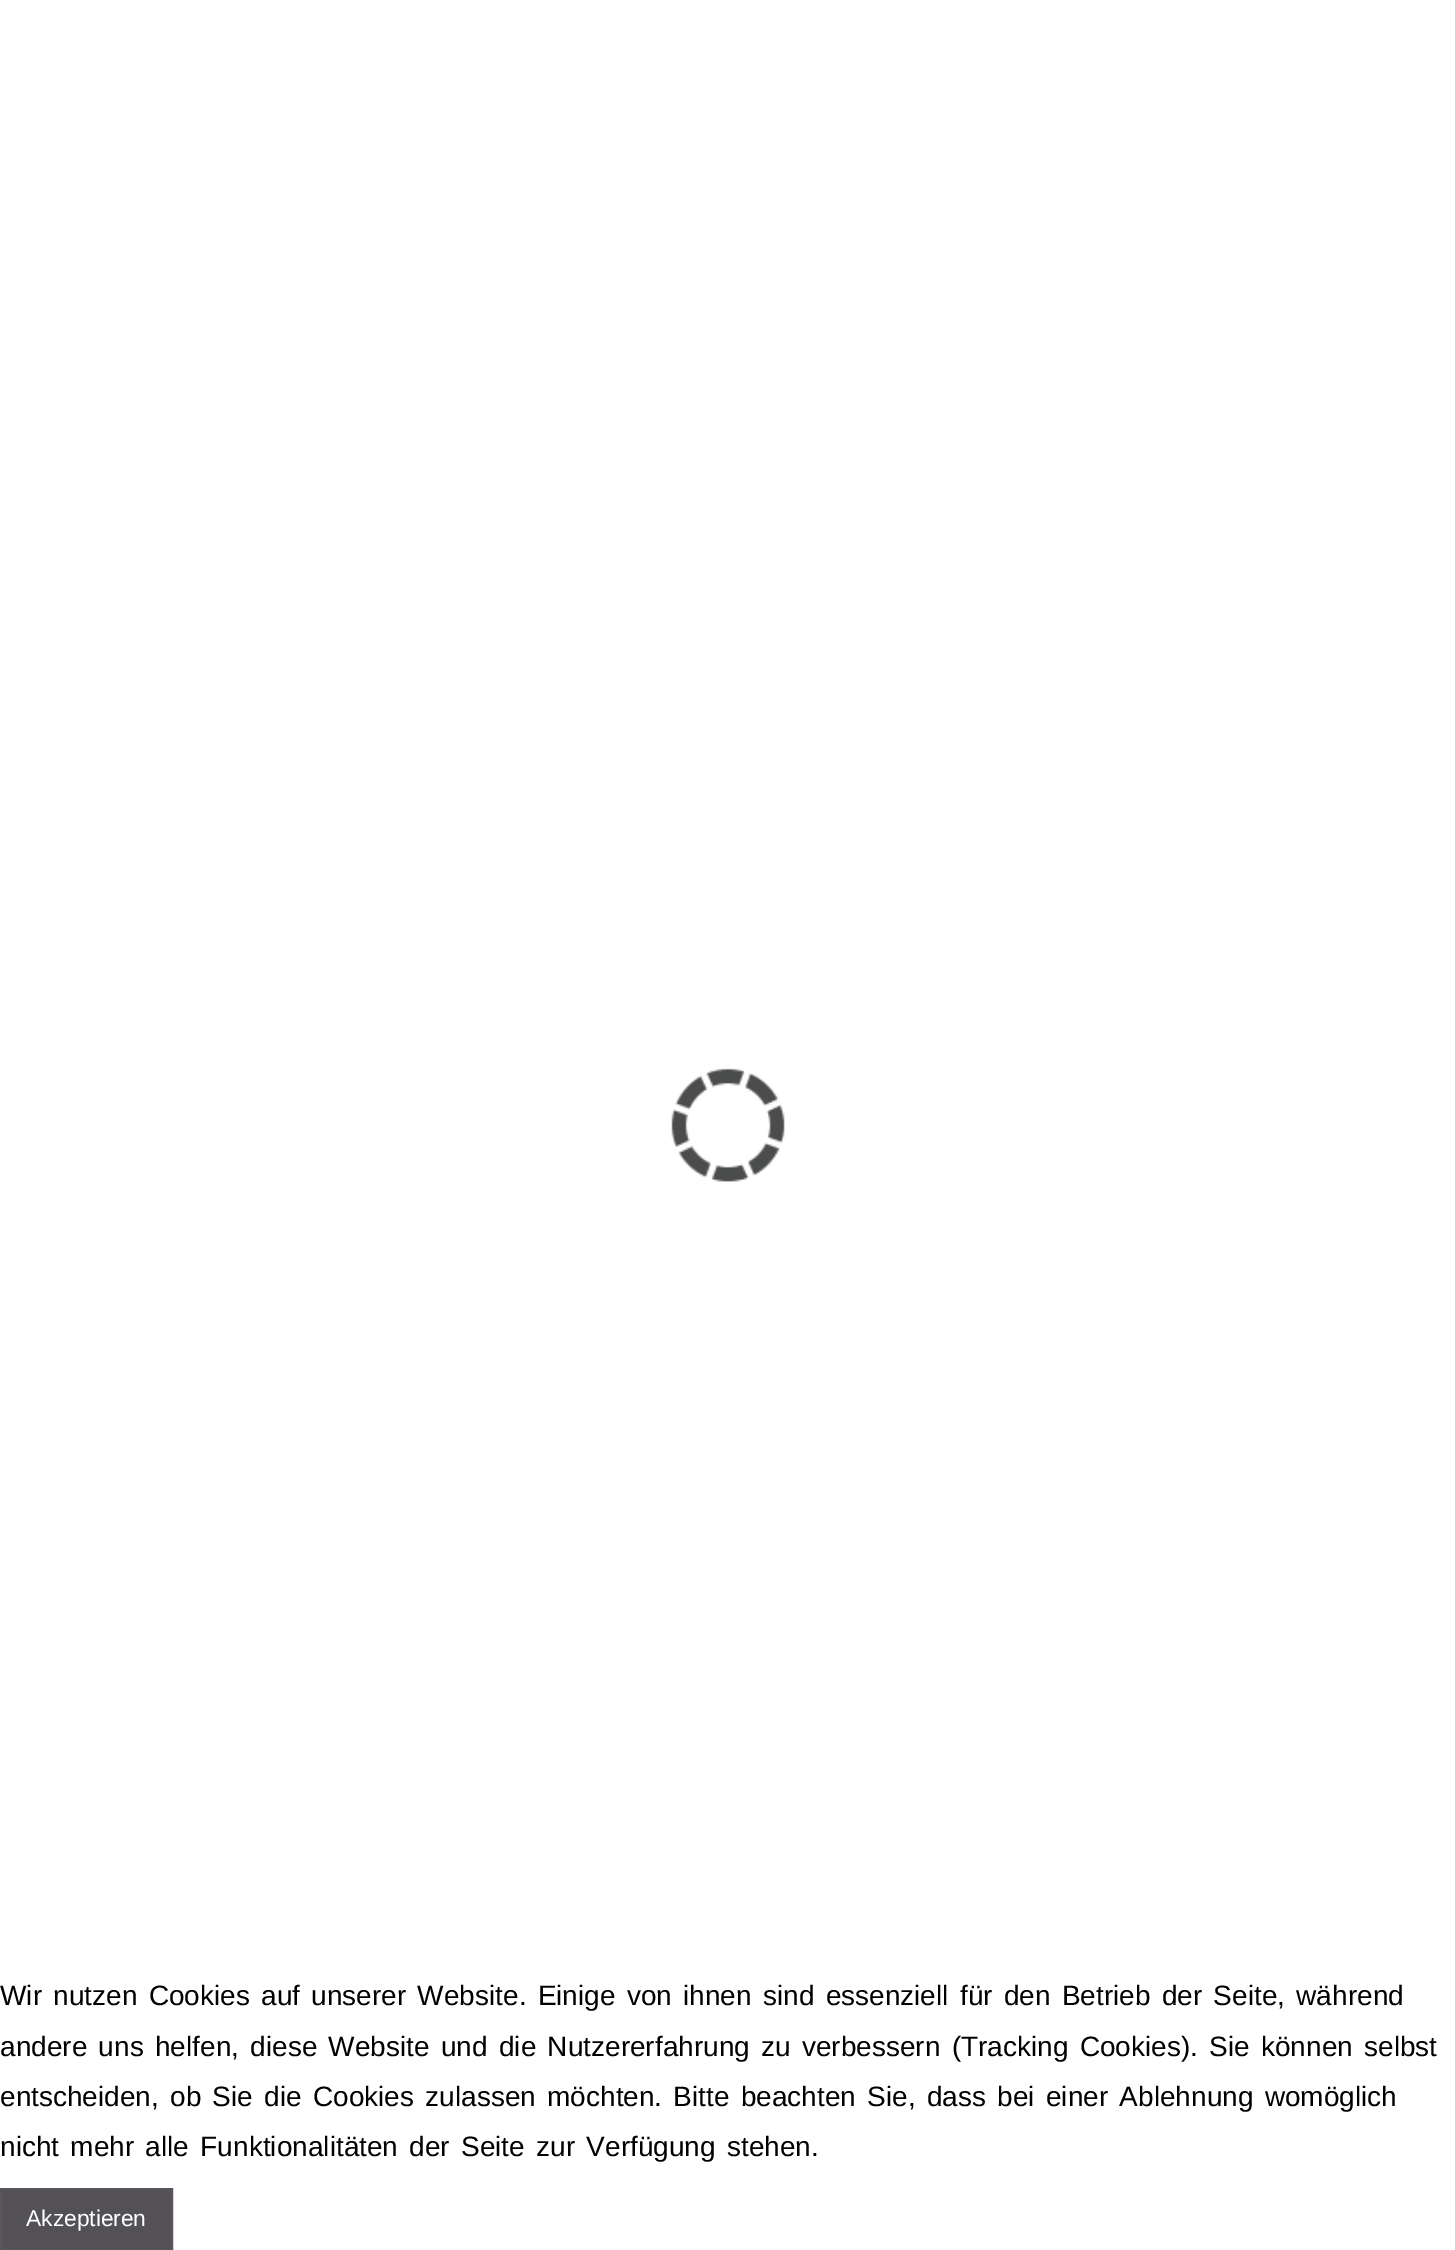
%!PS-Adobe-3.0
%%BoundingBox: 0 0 1455 2250
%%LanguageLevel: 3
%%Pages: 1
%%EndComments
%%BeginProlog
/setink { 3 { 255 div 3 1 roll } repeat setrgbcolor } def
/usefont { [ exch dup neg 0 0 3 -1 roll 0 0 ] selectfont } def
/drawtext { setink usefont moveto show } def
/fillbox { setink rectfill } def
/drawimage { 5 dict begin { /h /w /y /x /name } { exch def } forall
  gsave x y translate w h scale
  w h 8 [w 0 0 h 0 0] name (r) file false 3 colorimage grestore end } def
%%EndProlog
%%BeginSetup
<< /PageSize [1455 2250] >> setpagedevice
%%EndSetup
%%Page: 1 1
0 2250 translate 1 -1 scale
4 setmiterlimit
0 0 1455 2250 255 255 255 fillbox
(assets/img1.rgb) 671 1068 114 114 drawimage
/LiberationSans-Regular 28 usefont
0 0 0 setink
0 2005 moveto 3.5 0 32 (Wir nutzen Cookies auf unserer Website. Einige von ihnen sind essenziell für den Betrieb der Seite, während) widthshow
0 2056 moveto 3.5 0 32 (andere uns helfen, diese Website und die Nutzererfahrung zu verbessern \(Tracking Cookies\). Sie können selbst) widthshow
0 2106 moveto 3.5 0 32 (entscheiden, ob Sie die Cookies zulassen möchten. Bitte beachten Sie, dass bei einer Ablehnung womöglich) widthshow
0 2156 moveto 3.5 0 32 (nicht mehr alle Funktionalitäten der Seite zur Verfügung stehen.) widthshow
83 81 86 setink
1 2189 moveto 172 2189 lineto 172 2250 lineto 1 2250 lineto closepath gsave fill grestore
89 87 92 setink
2 setlinewidth
stroke
(Akzeptieren) 26 2226 /LiberationSans-Regular 22.75 255 255 255 drawtext
showpage
%%EOF
